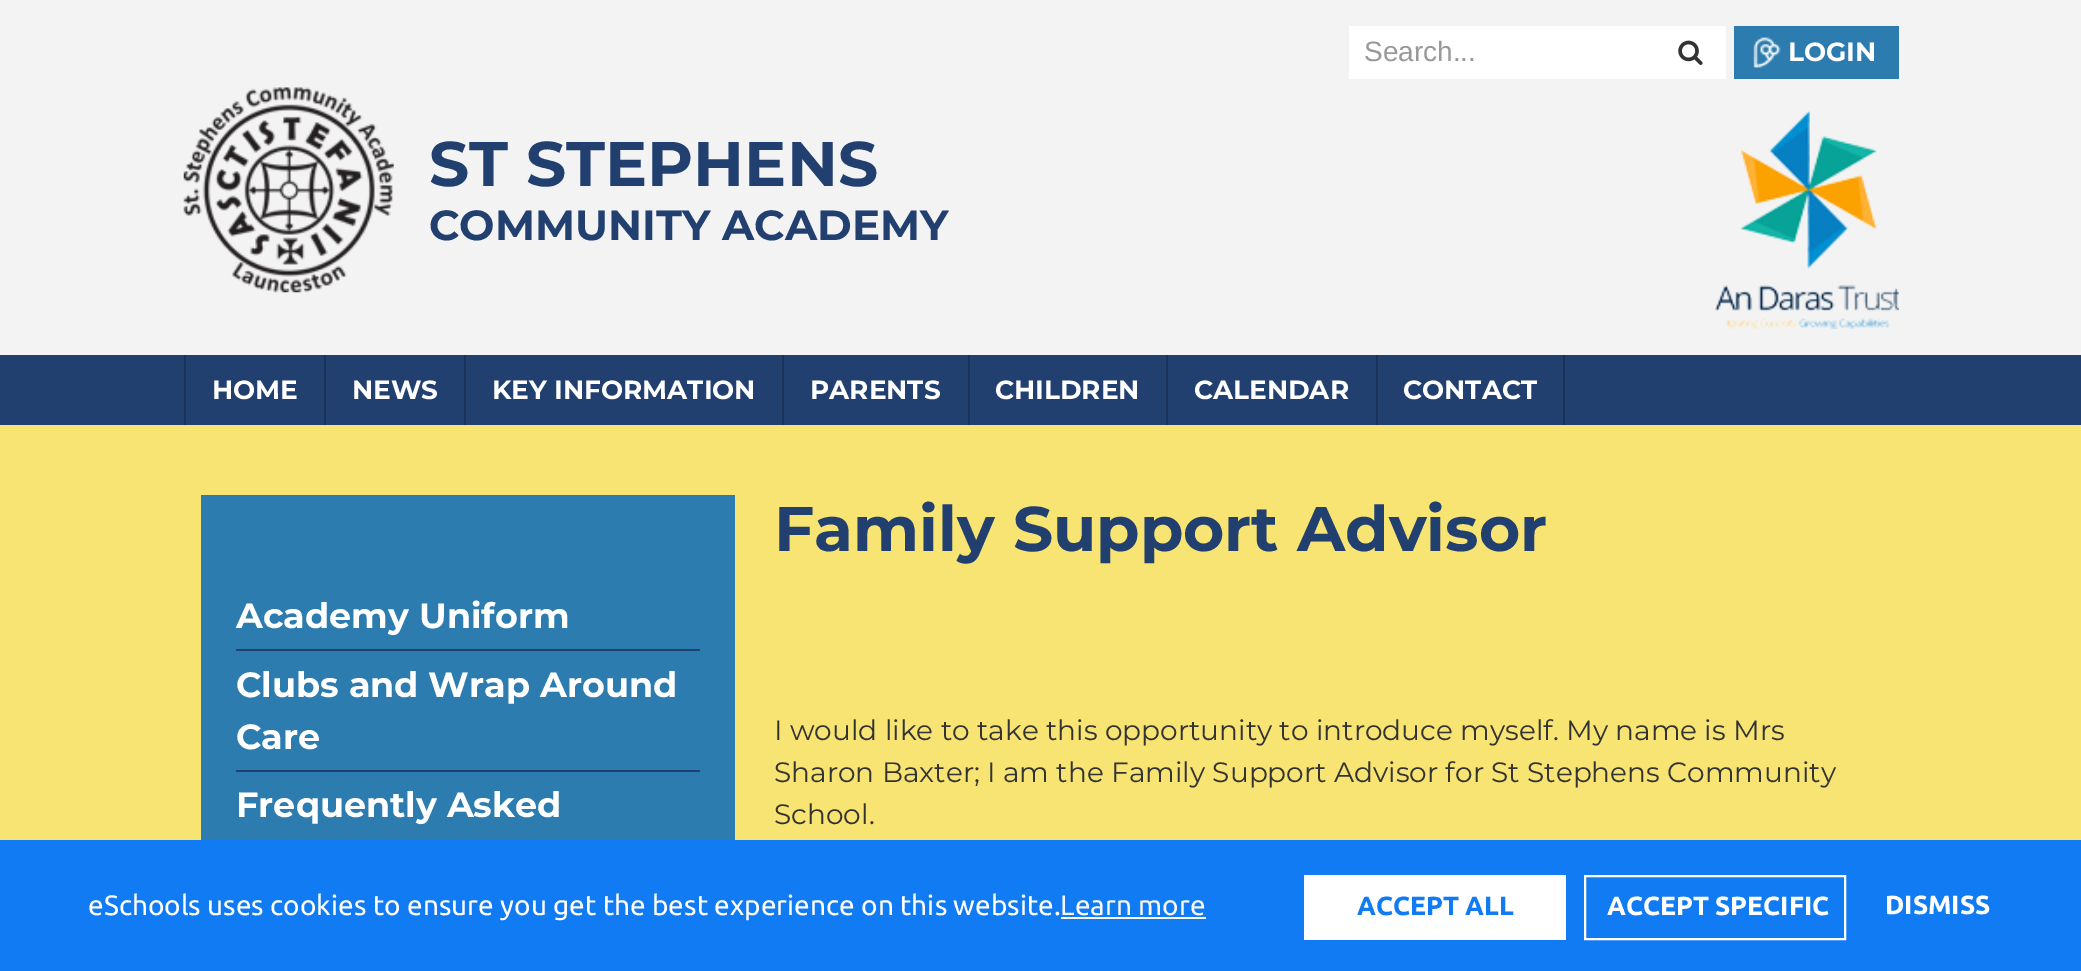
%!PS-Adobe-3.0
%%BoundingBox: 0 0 2081 971
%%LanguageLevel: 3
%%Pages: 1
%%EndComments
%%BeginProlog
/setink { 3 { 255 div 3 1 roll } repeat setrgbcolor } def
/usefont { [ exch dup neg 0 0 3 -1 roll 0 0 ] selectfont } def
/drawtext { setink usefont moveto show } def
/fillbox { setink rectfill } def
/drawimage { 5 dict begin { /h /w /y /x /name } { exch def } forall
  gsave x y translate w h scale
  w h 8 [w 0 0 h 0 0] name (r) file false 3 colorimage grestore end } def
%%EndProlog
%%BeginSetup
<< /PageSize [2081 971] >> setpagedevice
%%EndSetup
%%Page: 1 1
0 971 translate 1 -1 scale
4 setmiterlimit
0 0 2081 971 248 228 115 fillbox
0 0 2081 355 243 243 243 fillbox
1349 26 377 53 255 255 255 fillbox
(assets/img1.rgb) 1678 40 25 25 drawimage
(Search...) 1364 61 /LiberationSans-Regular 28 153 153 153 drawtext
1734 26 165 53 45 124 175 fillbox
(assets/img2.rgb) 1753 37 28 31 drawimage
(LOGIN) 1788 61 /Montserrat-Bold 26.25 255 255 255 drawtext
(assets/img3.rgb) 183 87 211 206 drawimage
(ST STEPHENS) 429 186 /Montserrat-Bold 63 33 63 111 drawtext
(COMMUNITY ACADEMY) 429 240 /Montserrat-Bold 42 33 63 111 drawtext
(assets/img4.rgb) 1715 110 184 219 drawimage
0 355 2081 70 33 63 111 fillbox
184 355 2 70 26 50 89 fillbox
(HOME) 212 399 /Montserrat-Bold 26.25 255 255 255 drawtext
324 355 2 70 26 50 89 fillbox
(NEWS) 352 399 /Montserrat-Bold 26.25 255 255 255 drawtext
464 355 2 70 26 50 89 fillbox
(KEY INFORMATION) 492 399 /Montserrat-Bold 26.25 255 255 255 drawtext
782 355 2 70 26 50 89 fillbox
(PARENTS) 810 399 /Montserrat-Bold 26.25 255 255 255 drawtext
968 355 2 70 26 50 89 fillbox
(CHILDREN) 995 399 /Montserrat-Bold 26.25 255 255 255 drawtext
1166 355 2 70 26 50 89 fillbox
(CALENDAR) 1194 399 /Montserrat-Bold 26.25 255 255 255 drawtext
1563 355 2 70 26 50 89 fillbox
1376 355 2 70 26 50 89 fillbox
(CONTACT) 1403 399 /Montserrat-Bold 26.25 255 255 255 drawtext
201 495 534 345 45 124 175 fillbox
(Academy Uniform) 236 628 /Montserrat-Bold 35 255 255 255 drawtext
236 649 464 2 33 63 111 fillbox
(Clubs and Wrap Around) 236 697 /Montserrat-Bold 35 255 255 255 drawtext
(Care) 236 749 /Montserrat-Bold 35 255 255 255 drawtext
236 770 464 2 33 63 111 fillbox
(Frequently Asked) 236 817 /Montserrat-Bold 35 255 255 255 drawtext
(Family Support Advisor) 774 551 /Montserrat-Bold 63 33 63 111 drawtext
(I would like to take this opportunity to introduce myself. My name is Mrs) 774 740 /Montserrat-Regular 28 51 51 51 drawtext
(Sharon Baxter; I am the Family Support Advisor for St Stephens Community) 774 782 /Montserrat-Regular 28 51 51 51 drawtext
(School.) 774 824 /Montserrat-Regular 28 51 51 51 drawtext
0 840 2081 131 17 123 243 fillbox
(eSchools uses cookies to ensure you get the best experience on this website.) 88 915 /Ubuntu-Regular 28 255 255 255 drawtext
1061 917 145 2 247 247 247 fillbox
(Learn more) 1060 915 /Ubuntu-Regular 28 247 247 247 drawtext
1304 875 262 65 255 255 255 fillbox
(ACCEPT ALL) 1357 915 /Ubuntu-Bold 26.25 17 123 243 drawtext
255 255 255 setink
2 setlinewidth
1585 876 260 63 rectstroke
(ACCEPT SPECIFIC) 1607 915 /Ubuntu-Bold 26.25 255 255 255 drawtext
(DISMISS) 1885 914 /Ubuntu-Bold 26.25 255 255 255 drawtext
showpage
%%EOF
